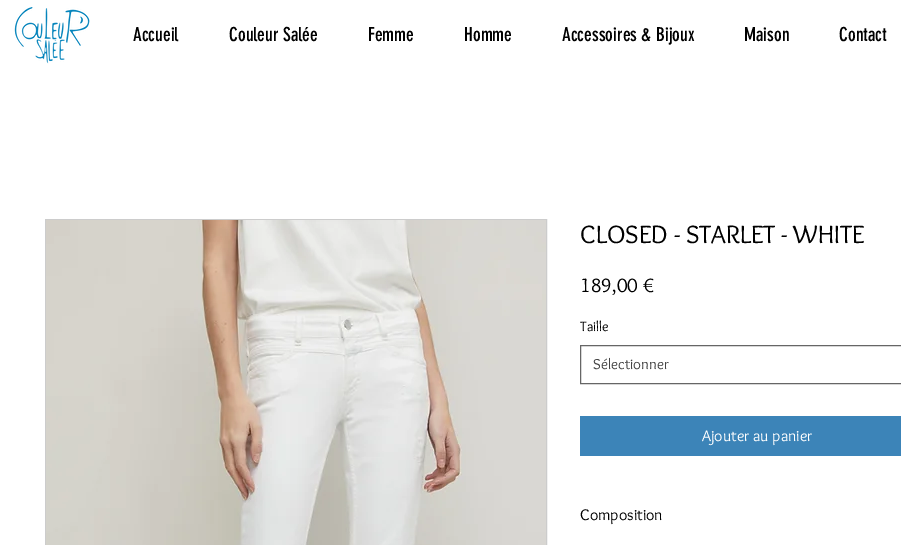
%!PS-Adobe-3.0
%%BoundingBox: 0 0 901 545
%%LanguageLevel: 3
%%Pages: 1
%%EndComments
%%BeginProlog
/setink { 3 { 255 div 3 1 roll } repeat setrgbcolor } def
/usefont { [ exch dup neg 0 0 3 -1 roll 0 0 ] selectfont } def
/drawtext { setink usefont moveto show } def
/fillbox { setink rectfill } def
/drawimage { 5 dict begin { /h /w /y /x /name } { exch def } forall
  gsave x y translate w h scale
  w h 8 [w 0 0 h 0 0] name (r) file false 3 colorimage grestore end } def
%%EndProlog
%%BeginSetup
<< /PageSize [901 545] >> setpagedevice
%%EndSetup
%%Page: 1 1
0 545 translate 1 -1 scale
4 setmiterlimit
0 0 901 545 255 255 255 fillbox
(assets/img1.rgb) 14 7 76 57 drawimage
(Accueil) 133 41 /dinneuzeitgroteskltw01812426-Regular 19 0 0 0 drawtext
(Couleur Salée) 229 41 /dinneuzeitgroteskltw01812426-Regular 19 0 0 0 drawtext
(Femme) 368 41 /dinneuzeitgroteskltw01812426-Regular 19 0 0 0 drawtext
(Homme) 464 41 /dinneuzeitgroteskltw01812426-Regular 19 0 0 0 drawtext
(Accessoires & Bijoux) 562 41 /dinneuzeitgroteskltw01812426-Regular 19 0 0 0 drawtext
(Maison) 744 41 /dinneuzeitgroteskltw01812426-Regular 19 0 0 0 drawtext
(Contact) 839 41 /dinneuzeitgroteskltw01812426-Regular 19 0 0 0 drawtext
204 204 204 setink
45.5 219.5 501 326 rectstroke
(assets/img2.rgb) 46 220 500 325 drawimage
(CLOSED - STARLET - WHITE) 580 243 /Overlock-Regular 26 0 0 0 drawtext
(189,00 €) 580 292 /Overlock-Regular 20 0 0 0 drawtext
(Taille) 580 331 /Overlock-Regular 14 0 0 0 drawtext
102 102 102 setink
580.5 345.5 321 38 rectstroke
(Sélectionner) 593 369 /Overlock-Regular 15 68 68 68 drawtext
580 416 321 40 60 132 184 fillbox
(Ajouter au panier) 702 441 /Overlock-Regular 16 255 255 255 drawtext
(Composition) 580 520 /Overlock-Regular 16 0 0 0 drawtext
showpage
%%EOF
